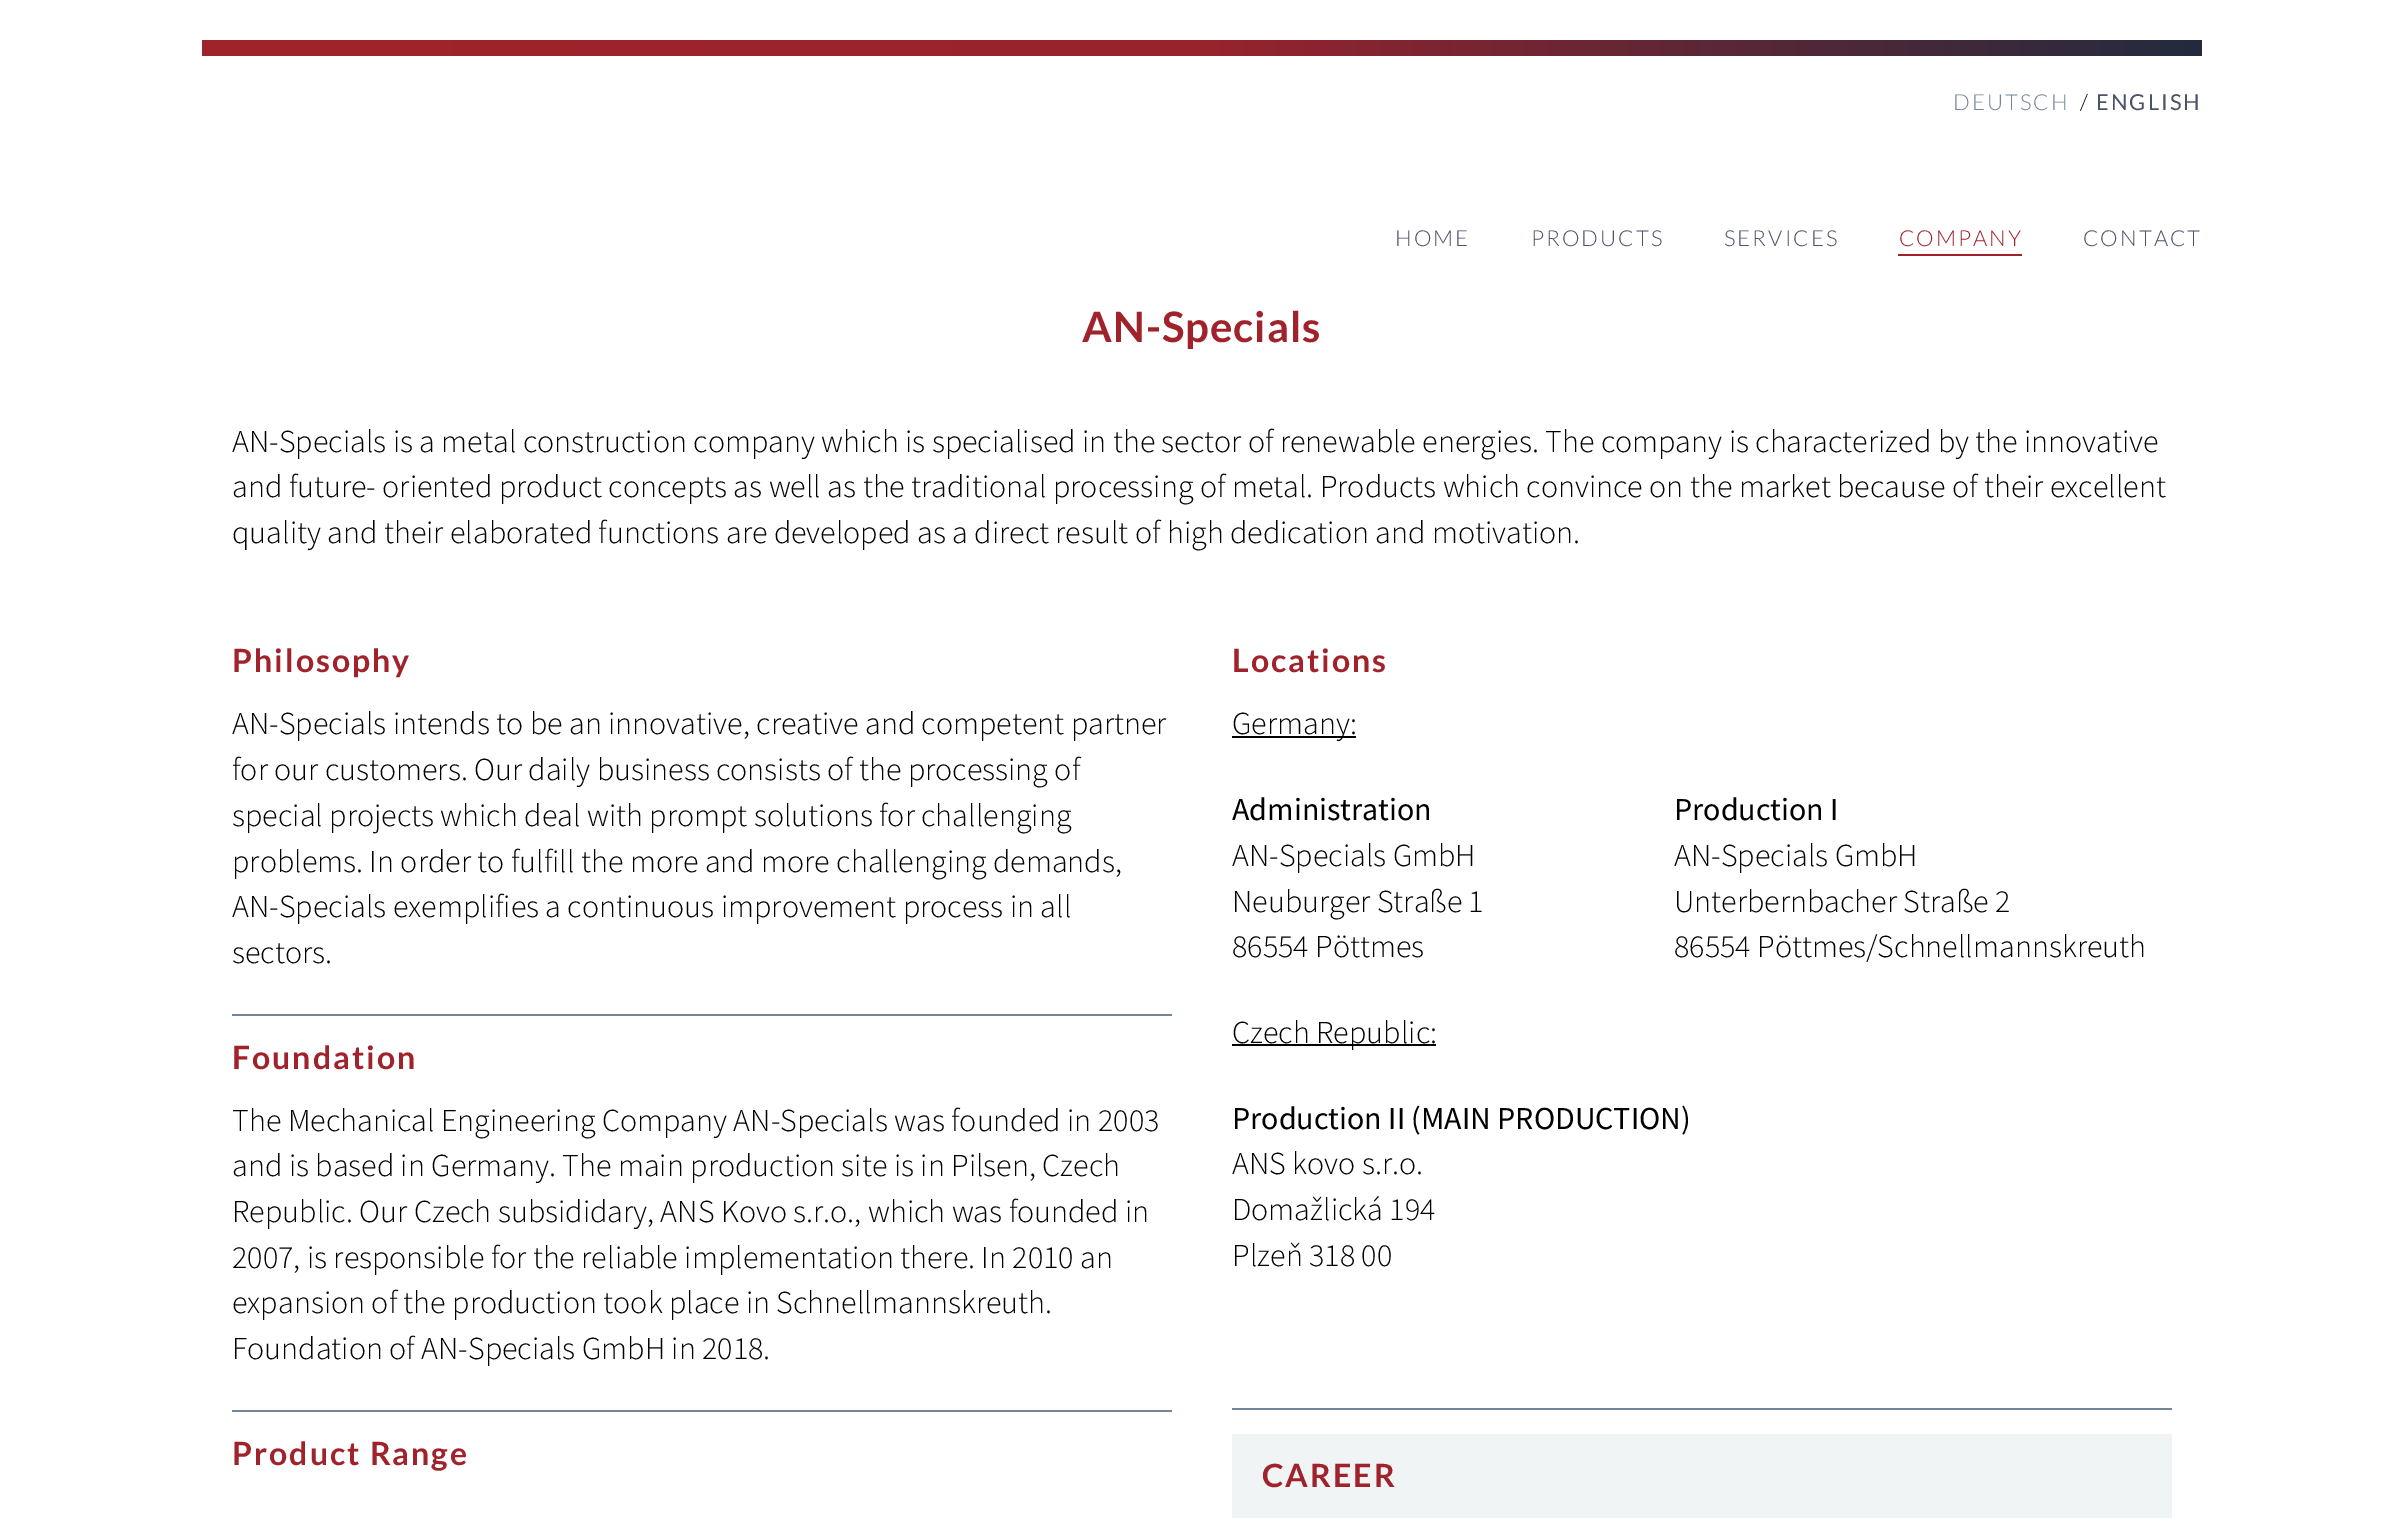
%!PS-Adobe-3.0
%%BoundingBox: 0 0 2403 1518
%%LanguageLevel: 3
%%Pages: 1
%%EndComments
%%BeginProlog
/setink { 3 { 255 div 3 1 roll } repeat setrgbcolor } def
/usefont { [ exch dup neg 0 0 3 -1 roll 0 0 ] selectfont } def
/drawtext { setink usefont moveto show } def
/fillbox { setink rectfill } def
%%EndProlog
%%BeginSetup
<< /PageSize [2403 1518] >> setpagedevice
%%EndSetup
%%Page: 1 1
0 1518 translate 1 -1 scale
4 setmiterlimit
0 0 2403 1518 255 255 255 fillbox
gsave 202 40 moveto 2202 40 lineto 2202 56 lineto 202 56 lineto closepath clip newpath
<< /ShadingType 2 /ColorSpace /DeviceRGB /Coords [202 48 2202 48] /Extend [true true] /Function << /FunctionType 3 /Domain [0 1] /Functions [<< /FunctionType 2 /Domain [0 1] /C0 [0.627 0.137 0.169] /C1 [0.596 0.137 0.176] /N 1 >> << /FunctionType 2 /Domain [0 1] /C0 [0.596 0.137 0.176] /C1 [0.137 0.169 0.247] /N 1 >>] /Bounds [0.5] /Encode [0 1 0 1] >> >> shfill grestore
/Lato-Light 22 usefont
115 134 153 setink
1953 110 moveto 2 0 (DEUTSCH) ashow
0 0 0 setink
2080 110 moveto 2 0 (/) ashow
/Lato-Regular 22 usefont
76 83 104 setink
2096 110 moveto 2 0 (ENGLISH) ashow
/Lato-Light 22 usefont
1395 246 moveto 2 0 (HOME) ashow
1531 246 moveto 2 0 (PRODUCTS) ashow
1724 246 moveto 2 0 (SERVICES) ashow
160 35 43 setink
1899 246 moveto 2 0 (COMPANY) ashow
1898 254 124 2 160 35 43 fillbox
76 83 104 setink
2083 246 moveto 2 0 (CONTACT) ashow
/Lato-Bold 42 usefont
160 35 43 setink
1082 342 moveto 1 0 (AN-Specials) ashow
(AN-Specials is a metal construction company which is specialised in the sector of renewable energies. The company is characterized by the innovative) 232 452 /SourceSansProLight-Light 32 0 0 0 drawtext
(and future- oriented product concepts as well as the traditional processing of metal. Products which convince on the market because of their excellent) 232 497 /SourceSansProLight-Light 32 0 0 0 drawtext
(quality and their elaborated functions are developed as a direct result of high dedication and motivation.) 232 543 /SourceSansProLight-Light 32 0 0 0 drawtext
232 1014 940 2 115 134 153 fillbox
/Lato-Bold 32 usefont
160 35 43 setink
232 672 moveto 2 0 (Philosophy) ashow
(AN-Specials intends to be an innovative, creative and competent partner) 232 734 /SourceSansProLight-Light 32 0 0 0 drawtext
(for our customers. Our daily business consists of the processing of) 232 780 /SourceSansProLight-Light 32 0 0 0 drawtext
(special projects which deal with prompt solutions for challenging) 232 826 /SourceSansProLight-Light 32 0 0 0 drawtext
(problems. In order to fulfill the more and more challenging demands,) 232 872 /SourceSansProLight-Light 32 0 0 0 drawtext
(AN-Specials exemplifies a continuous improvement process in all) 232 917 /SourceSansProLight-Light 32 0 0 0 drawtext
(sectors.) 232 963 /SourceSansProLight-Light 32 0 0 0 drawtext
232 1410 940 2 115 134 153 fillbox
/Lato-Bold 32 usefont
160 35 43 setink
232 1069 moveto 2 0 (Foundation) ashow
(The Mechanical Engineering Company AN-Specials was founded in 2003) 232 1131 /SourceSansProLight-Light 32 0 0 0 drawtext
(and is based in Germany. The main production site is in Pilsen, Czech) 232 1176 /SourceSansProLight-Light 32 0 0 0 drawtext
(Republic. Our Czech subsididary, ANS Kovo s.r.o., which was founded in) 232 1222 /SourceSansProLight-Light 32 0 0 0 drawtext
(2007, is responsible for the reliable implementation there. In 2010 an) 232 1268 /SourceSansProLight-Light 32 0 0 0 drawtext
(expansion of the production took place in Schnellmannskreuth.) 232 1313 /SourceSansProLight-Light 32 0 0 0 drawtext
(Foundation of AN-Specials GmbH in 2018.) 232 1359 /SourceSansProLight-Light 32 0 0 0 drawtext
/Lato-Bold 32 usefont
160 35 43 setink
232 1465 moveto 2 0 (Product Range) ashow
1232 1408 940 2 115 134 153 fillbox
160 35 43 setink
1232 672 moveto 2 0 (Locations) ashow
1232 736 124 2 0 0 0 fillbox
(Germany:) 1232 734 /SourceSansProLight-Light 32 0 0 0 drawtext
(Administration) 1232 820 /SourceSansPro-Regular 32 0 0 0 drawtext
(AN-Specials GmbH) 1232 866 /SourceSansProLight-Light 32 0 0 0 drawtext
(Neuburger Straße 1) 1232 912 /SourceSansProLight-Light 32 0 0 0 drawtext
(86554 Pöttmes) 1232 957 /SourceSansProLight-Light 32 0 0 0 drawtext
(Production I) 1674 820 /SourceSansPro-Regular 32 0 0 0 drawtext
(AN-Specials GmbH) 1674 866 /SourceSansProLight-Light 32 0 0 0 drawtext
(Unterbernbacher Straße 2) 1674 912 /SourceSansProLight-Light 32 0 0 0 drawtext
(86554 Pöttmes/Schnellmannskreuth) 1674 957 /SourceSansProLight-Light 32 0 0 0 drawtext
1232 1044 204 2 0 0 0 fillbox
(Czech Republic:) 1232 1043 /SourceSansProLight-Light 32 0 0 0 drawtext
(Production II \(MAIN PRODUCTION\)) 1232 1129 /SourceSansPro-Regular 32 0 0 0 drawtext
(ANS kovo s.r.o.) 1232 1174 /SourceSansProLight-Light 32 0 0 0 drawtext
(Domažlická 194) 1232 1220 /SourceSansProLight-Light 32 0 0 0 drawtext
(Plzeň 318 00) 1232 1266 /SourceSansProLight-Light 32 0 0 0 drawtext
1232 1434 940 84 241 244 245 fillbox
/Lato-Bold 32 usefont
160 35 43 setink
1262 1487 moveto 2 0 (CAREER) ashow
showpage
%%EOF
